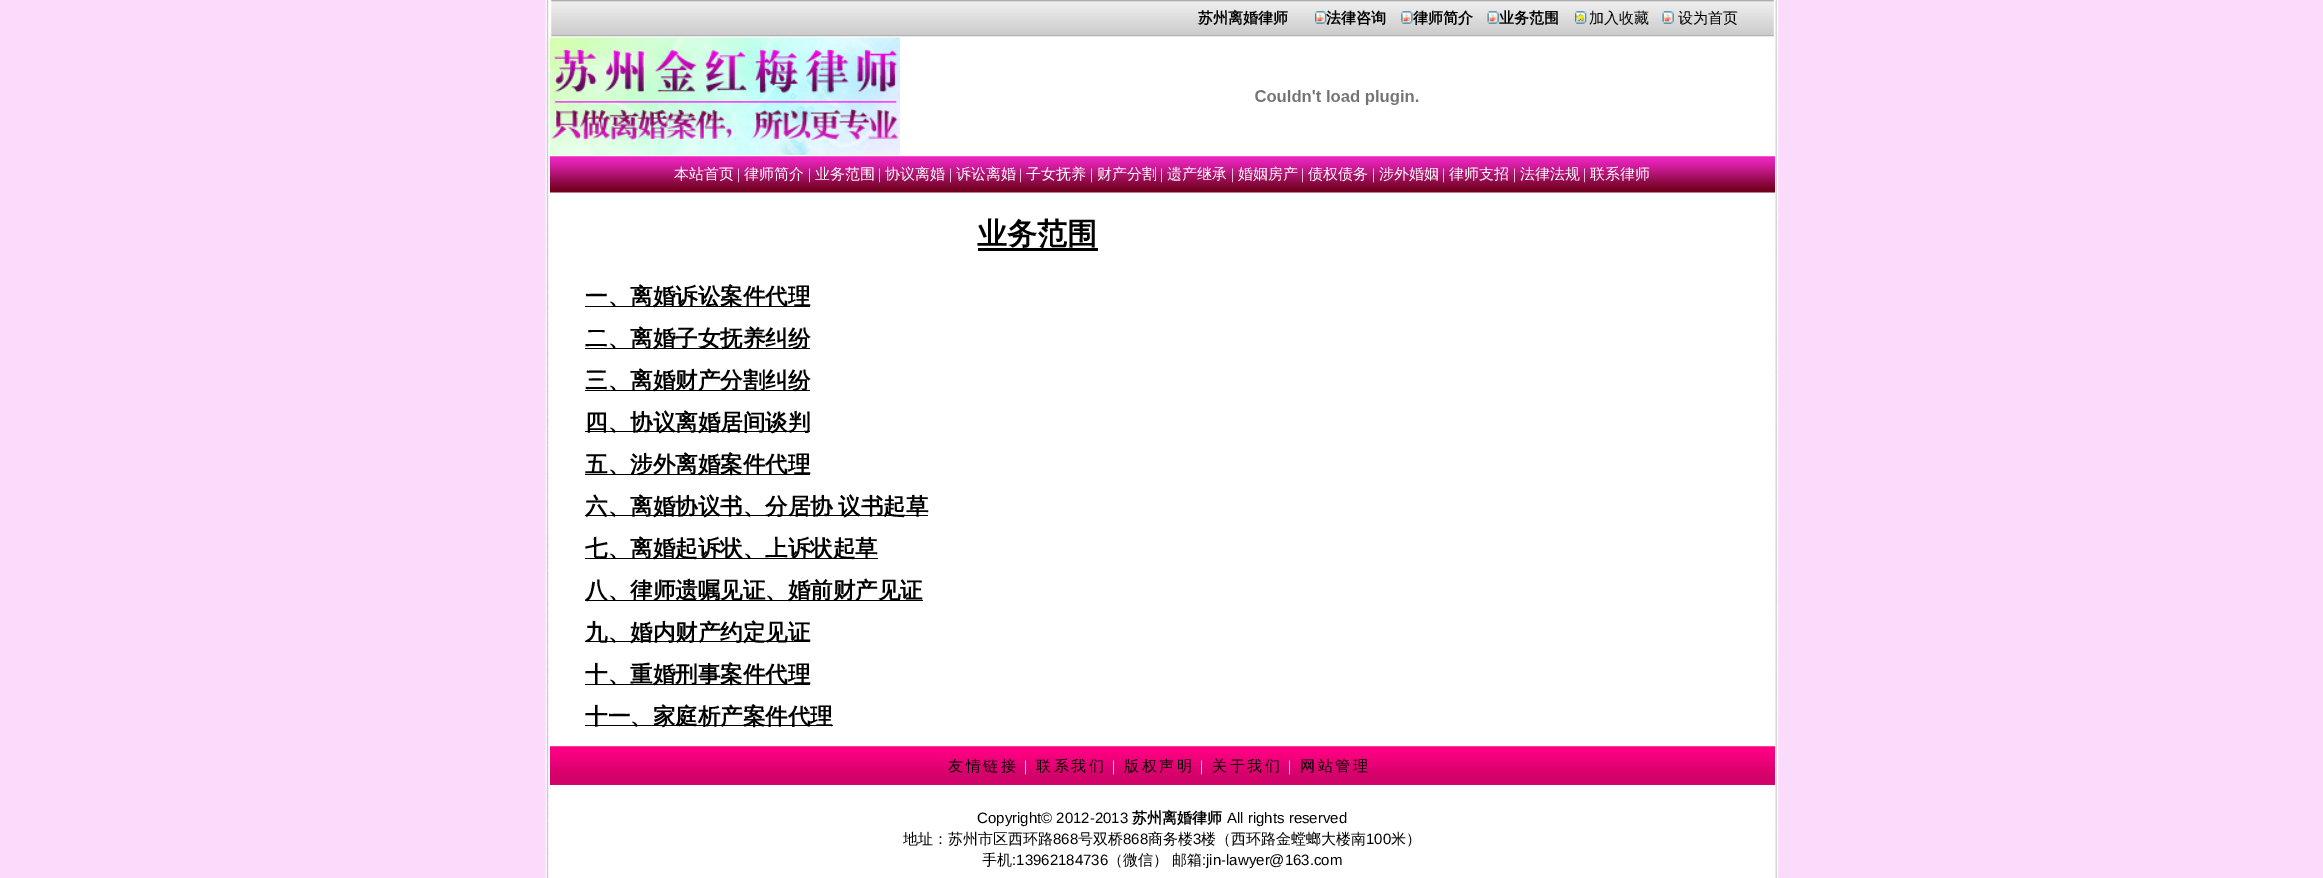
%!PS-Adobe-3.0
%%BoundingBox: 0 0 2323 878
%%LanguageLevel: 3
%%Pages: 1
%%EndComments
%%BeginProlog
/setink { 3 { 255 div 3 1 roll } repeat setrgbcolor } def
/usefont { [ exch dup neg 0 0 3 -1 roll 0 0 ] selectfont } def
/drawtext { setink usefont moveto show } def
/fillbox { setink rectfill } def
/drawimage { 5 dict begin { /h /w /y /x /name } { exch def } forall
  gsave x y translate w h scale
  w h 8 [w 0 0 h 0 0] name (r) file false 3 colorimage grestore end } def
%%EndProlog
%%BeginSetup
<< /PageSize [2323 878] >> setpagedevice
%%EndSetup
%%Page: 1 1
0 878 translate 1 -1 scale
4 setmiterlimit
0 0 2323 878 255 255 255 fillbox
(assets/img1.rgb) 0 0 2323 878 drawimage
(assets/img2.rgb) 551 0 1223 37 drawimage
(苏州离婚律师) 1198 23 /WenQuanYiZenHei-Bold 15 0 0 0 drawtext
(assets/img3.rgb) 1315 11 12 13 drawimage
(法律咨询) 1326 23 /WenQuanYiZenHei-Bold 15 0 0 0 drawtext
(assets/img4.rgb) 1401 11 12 13 drawimage
(律师简介) 1413 23 /WenQuanYiZenHei-Bold 15 0 0 0 drawtext
(assets/img5.rgb) 1487 11 12 13 drawimage
(业务范围) 1499 23 /WenQuanYiZenHei-Bold 15 0 0 0 drawtext
(assets/img6.rgb) 1575 11 12 13 drawimage
(加入收藏) 1589 23 /WenQuanYiZenHei-Medium 15 0 0 0 drawtext
(assets/img7.rgb) 1662 11 12 13 drawimage
(设为首页) 1678 23 /WenQuanYiZenHei-Medium 15 0 0 0 drawtext
(assets/img8.rgb) 550 37 350 118 drawimage
(assets/img9.rgb) 1255 90 164 15 drawimage
(assets/img10.rgb) 550 156 1225 37 drawimage
(本站首页) 674 179 /WenQuanYiZenHei-Medium 15 255 255 255 drawtext
(|) 737 179 /LiberationSerif-Regular 15 255 255 255 drawtext
(律师简介) 744 179 /WenQuanYiZenHei-Medium 15 255 255 255 drawtext
(|) 808 179 /LiberationSerif-Regular 15 255 255 255 drawtext
(业务范围) 815 179 /WenQuanYiZenHei-Medium 15 255 255 255 drawtext
(|) 878 179 /LiberationSerif-Regular 15 255 255 255 drawtext
(协议离婚) 885 179 /WenQuanYiZenHei-Medium 15 255 255 255 drawtext
(|) 949 179 /LiberationSerif-Regular 15 255 255 255 drawtext
(诉讼离婚) 956 179 /WenQuanYiZenHei-Medium 15 255 255 255 drawtext
(|) 1019 179 /LiberationSerif-Regular 15 255 255 255 drawtext
(子女抚养) 1026 179 /WenQuanYiZenHei-Medium 15 255 255 255 drawtext
(|) 1090 179 /LiberationSerif-Regular 15 255 255 255 drawtext
(财产分割) 1097 179 /WenQuanYiZenHei-Medium 15 255 255 255 drawtext
(|) 1160 179 /LiberationSerif-Regular 15 255 255 255 drawtext
(遗产继承) 1167 179 /WenQuanYiZenHei-Medium 15 255 255 255 drawtext
(|) 1231 179 /LiberationSerif-Regular 15 255 255 255 drawtext
(婚姻房产) 1238 179 /WenQuanYiZenHei-Medium 15 255 255 255 drawtext
(|) 1301 179 /LiberationSerif-Regular 15 255 255 255 drawtext
(债权债务) 1308 179 /WenQuanYiZenHei-Medium 15 255 255 255 drawtext
(|) 1372 179 /LiberationSerif-Regular 15 255 255 255 drawtext
(涉外婚姻) 1379 179 /WenQuanYiZenHei-Medium 15 255 255 255 drawtext
(|) 1442 179 /LiberationSerif-Regular 15 255 255 255 drawtext
(律师支招) 1449 179 /WenQuanYiZenHei-Medium 15 255 255 255 drawtext
(|) 1513 179 /LiberationSerif-Regular 15 255 255 255 drawtext
(法律法规) 1520 179 /WenQuanYiZenHei-Medium 15 255 255 255 drawtext
(|) 1583 179 /LiberationSerif-Regular 15 255 255 255 drawtext
(联系律师) 1590 179 /WenQuanYiZenHei-Medium 15 255 255 255 drawtext
978 248 120 3 0 0 0 fillbox
(业务范围) 977 244 /WenQuanYiZenHei-Bold 30 0 0 0 drawtext
585 306 225 1 0 0 0 fillbox
(一、离婚诉讼案件代理) 585 304 /WenQuanYiZenHei-Bold 22.5 0 0 0 drawtext
585 348 225 1 0 0 0 fillbox
(二、离婚子女抚养纠纷) 585 346 /WenQuanYiZenHei-Bold 22.5 0 0 0 drawtext
585 390 225 1 0 0 0 fillbox
(三、离婚财产分割纠纷) 585 388 /WenQuanYiZenHei-Bold 22.5 0 0 0 drawtext
585 431 225 1 0 0 0 fillbox
(四、协议离婚居间谈判) 585 430 /WenQuanYiZenHei-Bold 22.5 0 0 0 drawtext
585 474 225 1 0 0 0 fillbox
(五、涉外离婚案件代理) 585 472 /WenQuanYiZenHei-Bold 22.5 0 0 0 drawtext
585 515 343 1 0 0 0 fillbox
585 514 moveto -1 0 32 (六、离婚协议书、分居协 议书起草) widthshow
585 558 293 1 0 0 0 fillbox
(七、离婚起诉状、上诉状起草) 585 556 /WenQuanYiZenHei-Bold 22.5 0 0 0 drawtext
585 600 338 1 0 0 0 fillbox
(八、律师遗嘱见证、婚前财产见证) 585 598 /WenQuanYiZenHei-Bold 22.5 0 0 0 drawtext
585 641 225 1 0 0 0 fillbox
(九、婚内财产约定见证) 585 640 /WenQuanYiZenHei-Bold 22.5 0 0 0 drawtext
585 684 225 1 0 0 0 fillbox
(十、重婚刑事案件代理) 585 682 /WenQuanYiZenHei-Bold 22.5 0 0 0 drawtext
585 725 248 1 0 0 0 fillbox
(十一、家庭析产案件代理) 585 724 /WenQuanYiZenHei-Bold 22.5 0 0 0 drawtext
(assets/img11.rgb) 550 746 1225 39 drawimage
/WenQuanYiZenHei-Medium 15 usefont
948 771 moveto 2.5 0 (友情链接) ashow
/LiberationSerif-Regular 15 usefont
255 255 255 setink
1024 771 moveto 2.5 0 (|) ashow
/WenQuanYiZenHei-Medium 15 usefont
0 0 0 setink
1036 771 moveto 2.5 0 (联系我们) ashow
/LiberationSerif-Regular 15 usefont
255 255 255 setink
1112 771 moveto 2.5 0 (|) ashow
/WenQuanYiZenHei-Medium 15 usefont
0 0 0 setink
1124 771 moveto 2.5 0 (版权声明) ashow
/LiberationSerif-Regular 15 usefont
255 255 255 setink
1200 771 moveto 2.5 0 (|) ashow
/WenQuanYiZenHei-Medium 15 usefont
0 0 0 setink
1212 771 moveto 2.5 0 (关于我们) ashow
/LiberationSerif-Regular 15 usefont
255 255 255 setink
1288 771 moveto 2.5 0 (|) ashow
/WenQuanYiZenHei-Medium 15 usefont
0 0 0 setink
1300 771 moveto 2.5 0 (网站管理) ashow
(Copyright© 2012-2013) 977 823 /LiberationSans-Regular 15 0 0 0 drawtext
(苏州离婚律师) 1132 823 /WenQuanYiZenHei-Bold 15 0 0 0 drawtext
(All rights reserved) 1227 823 /LiberationSans-Regular 15 0 0 0 drawtext
(地址：苏州市区西环路) 903 844 /WenQuanYiZenHei-Medium 15 0 0 0 drawtext
(868) 1053 844 /LiberationSans-Regular 15 0 0 0 drawtext
(号双桥) 1078 844 /WenQuanYiZenHei-Medium 15 0 0 0 drawtext
(868) 1123 844 /LiberationSans-Regular 15 0 0 0 drawtext
(商务楼) 1148 844 /WenQuanYiZenHei-Medium 15 0 0 0 drawtext
(3) 1193 844 /LiberationSans-Regular 15 0 0 0 drawtext
(楼（西环路金螳螂大楼南) 1201 844 /WenQuanYiZenHei-Medium 15 0 0 0 drawtext
(100) 1366 844 /LiberationSans-Regular 15 0 0 0 drawtext
(米）) 1391 844 /WenQuanYiZenHei-Medium 15 0 0 0 drawtext
(手机) 982 865 /WenQuanYiZenHei-Medium 15 0 0 0 drawtext
(:13962184736) 1012 865 /LiberationSans-Regular 15 0 0 0 drawtext
(（微信） 邮箱) 1108 865 /WenQuanYiZenHei-Medium 15 0 0 0 drawtext
(:jin-lawyer@163.com) 1202 865 /LiberationSans-Regular 15 0 0 0 drawtext
showpage
%%EOF
